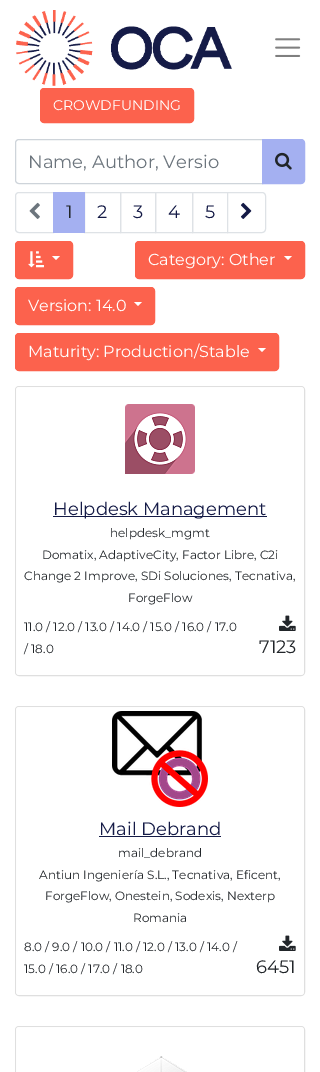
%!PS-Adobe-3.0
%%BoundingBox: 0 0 320 1072
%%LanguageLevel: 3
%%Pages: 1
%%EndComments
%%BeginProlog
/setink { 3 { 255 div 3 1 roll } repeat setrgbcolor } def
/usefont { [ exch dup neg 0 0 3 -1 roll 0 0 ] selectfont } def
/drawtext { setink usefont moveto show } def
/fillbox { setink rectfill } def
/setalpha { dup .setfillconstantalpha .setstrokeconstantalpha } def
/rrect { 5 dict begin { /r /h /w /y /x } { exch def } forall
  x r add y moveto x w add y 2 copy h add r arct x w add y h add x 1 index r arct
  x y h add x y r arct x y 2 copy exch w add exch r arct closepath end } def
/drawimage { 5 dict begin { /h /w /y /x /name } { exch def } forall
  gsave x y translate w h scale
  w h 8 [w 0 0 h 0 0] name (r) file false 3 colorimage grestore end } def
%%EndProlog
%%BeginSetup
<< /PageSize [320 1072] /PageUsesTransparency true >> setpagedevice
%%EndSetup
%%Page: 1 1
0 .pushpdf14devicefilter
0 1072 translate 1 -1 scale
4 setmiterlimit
0 0 320 1072 255 255 255 fillbox
(assets/img1.rgb) 16 10 216 76 drawimage
(assets/img2.rgb) 275 38 26 19 drawimage
252 98 77 setink
40.5 88.5 153 34 3.5 rrect gsave fill grestore
stroke
(CROWDFUNDING) 53 110 /Montserrat-Regular 14 255 255 255 drawtext
206 212 218 setink
19 139.5 moveto 262.5 139.5 lineto 262.5 183.5 lineto 19 183.5 lineto 17 183.5 15.5 182 15.5 180 curveto 15.5 143 lineto 15.5 141 17 139.5 19 139.5 curveto closepath stroke
(Name, Author, Versio) 28 168 /Montserrat-Regular 18 108 117 125 drawtext
164 176 241 setink
262.5 139.5 moveto 301 139.5 lineto 303 139.5 304.5 141 304.5 143 curveto 304.5 180 lineto 304.5 182 303 183.5 301 183.5 curveto 262.5 183.5 lineto closepath gsave fill grestore
stroke
(assets/img3.rgb) 275 152 17 18 drawimage
222 226 230 setink
19 192.5 moveto 53.5 192.5 lineto 53.5 232.5 lineto 19 232.5 lineto 17 232.5 15.5 231 15.5 229 curveto 15.5 196 lineto 15.5 194 17 192.5 19 192.5 curveto closepath stroke
(assets/img4.rgb) 29 202 11 17 drawimage
84.5 192.5 36 40 rectstroke
53 192 32 41 164 176 241 fillbox
(1) 66 218 /Montserrat-Regular 18 33 37 41 drawtext
(2) 97 218 /Montserrat-Regular 18 20 26 70 drawtext
222 226 230 setink
120.5 192.5 35 40 rectstroke
(3) 133 218 /Montserrat-Regular 18 20 26 70 drawtext
222 226 230 setink
155.5 192.5 37 40 rectstroke
(4) 168 218 /Montserrat-Regular 18 20 26 70 drawtext
222 226 230 setink
192.5 192.5 35 40 rectstroke
(5) 205 218 /Montserrat-Regular 18 20 26 70 drawtext
255 255 255 setink
227.5 192.5 moveto 262 192.5 lineto 264 192.5 265.5 194 265.5 196 curveto 265.5 229 lineto 265.5 231 264 232.5 262 232.5 curveto 227.5 232.5 lineto closepath gsave fill grestore
222 226 230 setink
stroke
(assets/img5.rgb) 240 202 12 17 drawimage
252 98 77 setink
15.5 241.5 57 37 3.5 rrect gsave fill grestore
stroke
(assets/img6.rgb) 28 251 16 17 drawimage
255 255 255 setink
52 256 moveto 60 256 lineto 56 260 lineto closepath fill
252 98 77 setink
135.5 241.5 169 37 3.5 rrect gsave fill grestore
stroke
(Category: Other) 148 265 /Montserrat-Regular 16 255 255 255 drawtext
284 256 moveto 292 256 lineto 288 260 lineto closepath fill
252 98 77 setink
15.5 287.5 139 37 3.5 rrect gsave fill grestore
stroke
(Version: 14.0) 28 311 /Montserrat-Regular 16 255 255 255 drawtext
134 302 moveto 142 302 lineto 138 306 lineto closepath fill
252 98 77 setink
15.5 333.5 263 37 3.5 rrect gsave fill grestore
stroke
(Maturity: Production/Stable) 28 357 /Montserrat-Regular 16 255 255 255 drawtext
258 348 moveto 266 348 lineto 262 352 lineto closepath fill
223 223 223 setink
15.5 386.5 289 289 3.5 rrect stroke
0.9 setalpha
255 255 255 setink
19 387 moveto 301 387 lineto 302.5 387 304 388.5 304 390 curveto 304 491 lineto 16 491 lineto 16 390 lineto 16 388.5 17.5 387 19 387 curveto closepath fill
1 setalpha
(assets/img7.rgb) 125 404 70 70 drawimage
0.9 setalpha
16 491 moveto 304 491 lineto 304 672 lineto 304 673.5 302.5 675 301 675 curveto 19 675 lineto 17.5 675 16 673.5 16 672 curveto closepath fill
1 setalpha
53 516 214 1 20 26 70 fillbox
(Helpdesk Management) 53 515 /Montserrat-Regular 18 20 26 70 drawtext
(helpdesk_mgmt) 110 537 /Montserrat-Regular 12 33 37 41 drawtext
(Domatix, AdaptiveCity, Factor Libre, C2i) 42 559 /Montserrat-Regular 12 33 37 41 drawtext
(Change 2 Improve, SDi Soluciones, Tecnativa,) 24 580 /Montserrat-Regular 12 33 37 41 drawtext
(ForgeFlow) 128 602 /Montserrat-Regular 12 33 37 41 drawtext
(11.0 / 12.0 / 13.0 / 14.0 / 15.0 / 16.0 / 17.0) 24 631 /Montserrat-Regular 12 33 37 41 drawtext
(/ 18.0) 24 653 /Montserrat-Regular 12 33 37 41 drawtext
(assets/img8.rgb) 279 615 17 16 drawimage
(7123) 259 653 /Montserrat-Regular 18 33 37 41 drawtext
223 223 223 setink
15.5 706.5 289 289 3.5 rrect stroke
0.9 setalpha
255 255 255 setink
19 707 moveto 301 707 lineto 302.5 707 304 708.5 304 710 curveto 304 811 lineto 16 811 lineto 16 710 lineto 16 708.5 17.5 707 19 707 curveto closepath fill
1 setalpha
(assets/img9.rgb) 112 711 96 96 drawimage
0.9 setalpha
16 811 moveto 304 811 lineto 304 992 lineto 304 993.5 302.5 995 301 995 curveto 19 995 lineto 17.5 995 16 993.5 16 992 curveto closepath fill
1 setalpha
(Mail Debrand) 99 835 /Montserrat-Regular 18 20 26 70 drawtext
99 836 122 1 20 26 70 fillbox
(mail_debrand) 118 857 /Montserrat-Regular 12 33 37 41 drawtext
(Antiun Ingeniería S.L., Tecnativa, Eficent,) 39 879 /Montserrat-Regular 12 33 37 41 drawtext
(ForgeFlow, Onestein, Sodexis, Nexterp) 45 900 /Montserrat-Regular 12 33 37 41 drawtext
(Romania) 133 922 /Montserrat-Regular 12 33 37 41 drawtext
(8.0 / 9.0 / 10.0 / 11.0 / 12.0 / 13.0 / 14.0 /) 24 951 /Montserrat-Regular 12 33 37 41 drawtext
(15.0 / 16.0 / 17.0 / 18.0) 24 973 /Montserrat-Regular 12 33 37 41 drawtext
(assets/img8.rgb) 279 935 17 16 drawimage
(6451) 256 973 /Montserrat-Regular 18 33 37 41 drawtext
223 223 223 setink
15.5 1026.5 289 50 3.5 rrect stroke
0.9 setalpha
255 255 255 setink
19 1027 moveto 301 1027 lineto 302.5 1027 304 1028.5 304 1030 curveto 304 1072 lineto 16 1072 lineto 16 1030 lineto 16 1028.5 17.5 1027 19 1027 curveto closepath fill
1 setalpha
(assets/img10.rgb) 137 1056 50 16 drawimage
.poppdf14devicefilter showpage
%%EOF
